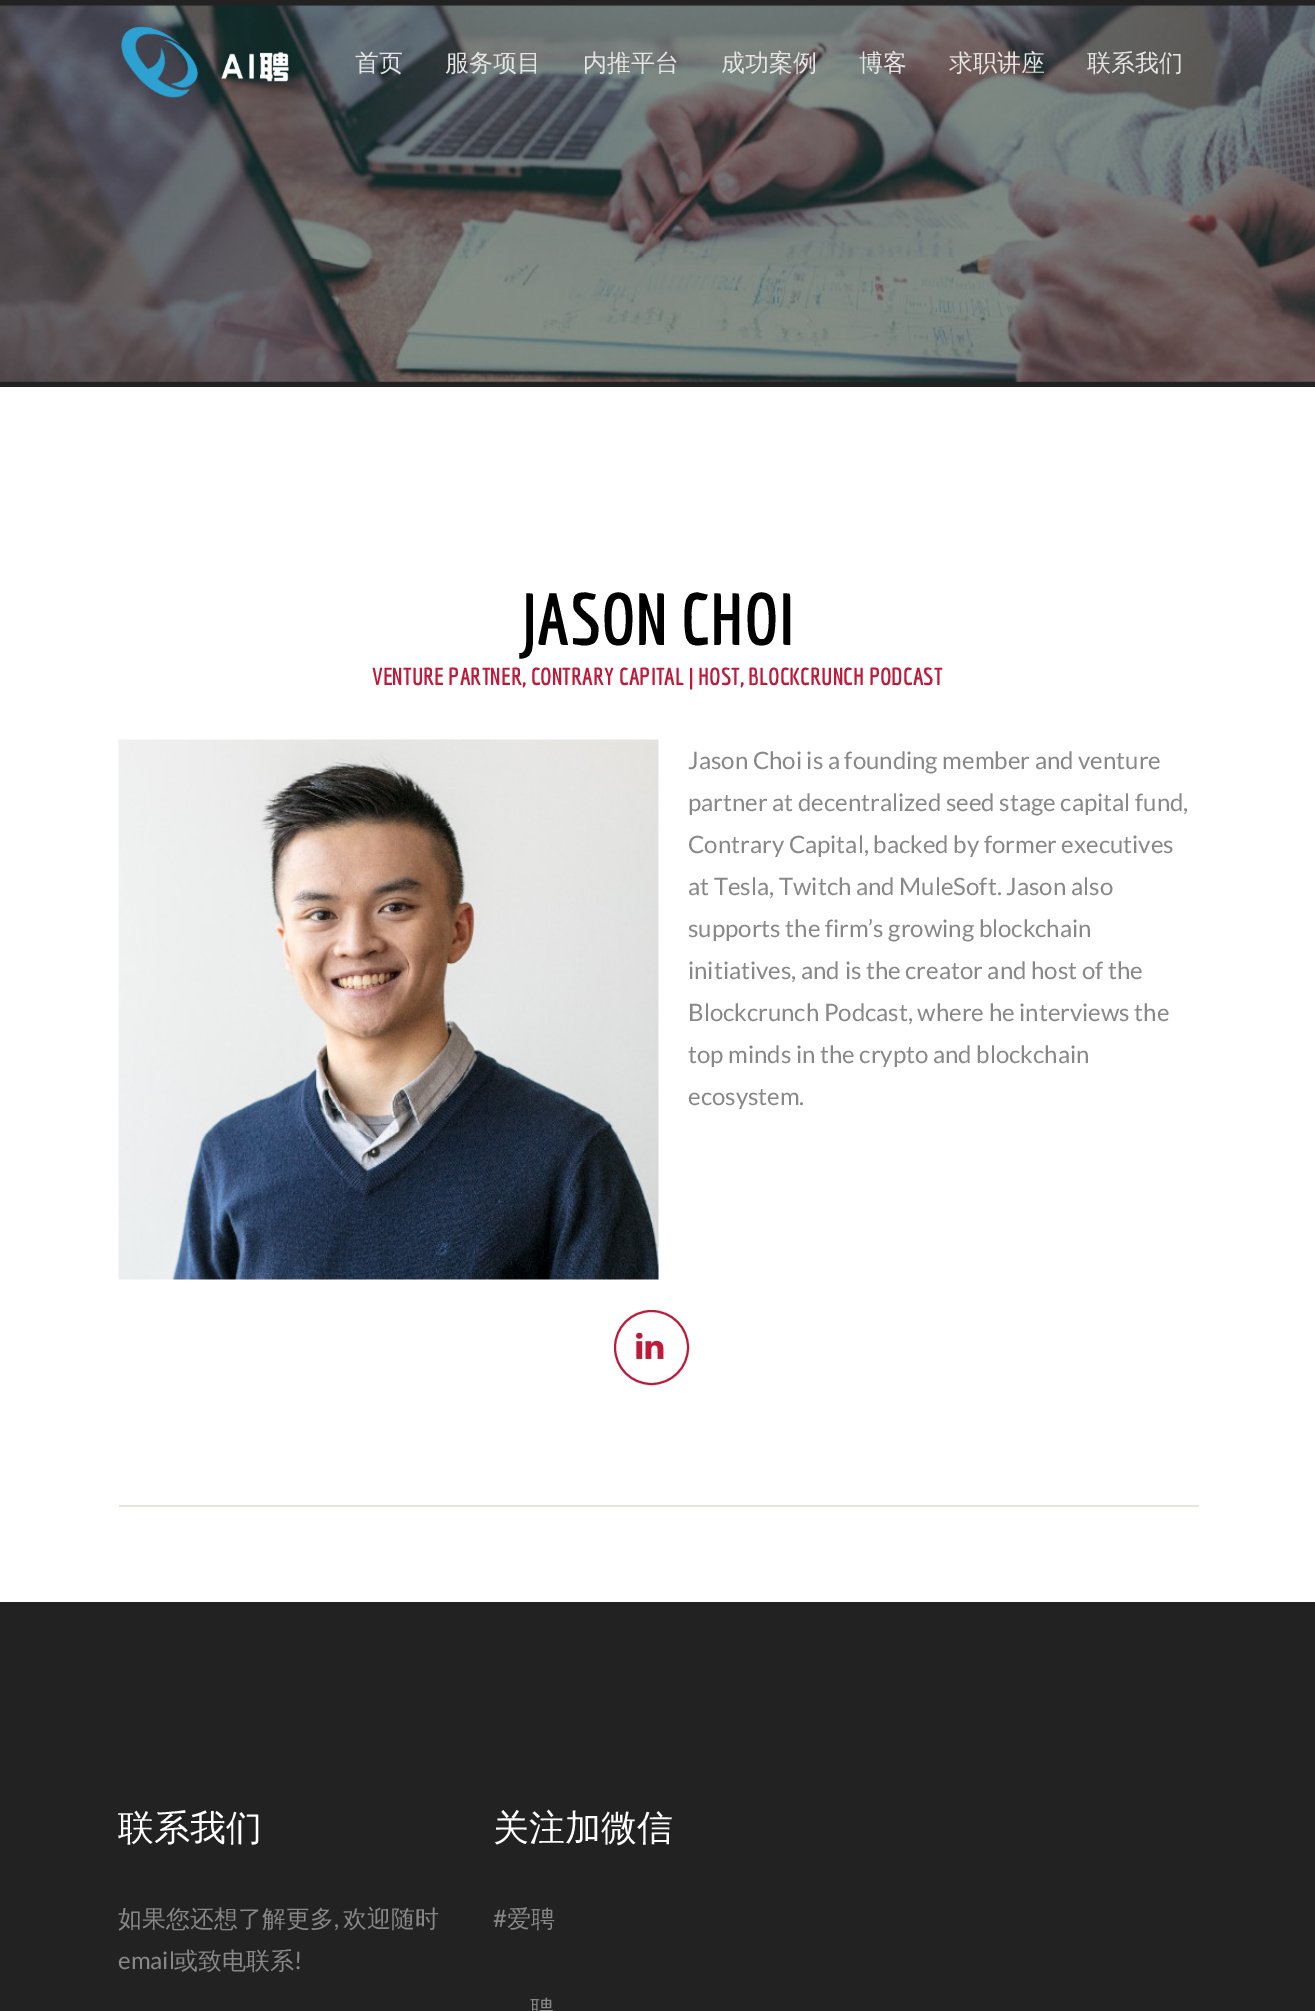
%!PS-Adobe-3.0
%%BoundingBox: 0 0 1315 2011
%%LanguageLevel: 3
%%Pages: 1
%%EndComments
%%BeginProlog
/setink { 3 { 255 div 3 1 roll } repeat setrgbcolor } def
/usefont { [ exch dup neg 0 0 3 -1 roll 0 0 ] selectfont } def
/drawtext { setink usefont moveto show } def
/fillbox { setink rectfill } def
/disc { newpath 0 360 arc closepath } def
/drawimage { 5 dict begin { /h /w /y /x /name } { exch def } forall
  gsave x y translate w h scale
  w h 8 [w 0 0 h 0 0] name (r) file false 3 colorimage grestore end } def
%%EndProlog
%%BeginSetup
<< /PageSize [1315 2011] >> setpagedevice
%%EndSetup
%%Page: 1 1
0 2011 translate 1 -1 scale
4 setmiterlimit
0 0 1315 2011 255 255 255 fillbox
0 0 1315 387 34 34 34 fillbox
(assets/img1.rgb) 0 5 1315 377 drawimage
(assets/img2.rgb) 121 26 168 72 drawimage
(首页) 355 71 /WenQuanYiZenHei-Medium 24 229 229 229 drawtext
(服务项目) 445 71 /WenQuanYiZenHei-Medium 24 229 229 229 drawtext
(内推平台) 583 71 /WenQuanYiZenHei-Medium 24 229 229 229 drawtext
(成功案例) 721 71 /WenQuanYiZenHei-Medium 24 229 229 229 drawtext
(博客) 859 71 /WenQuanYiZenHei-Medium 24 229 229 229 drawtext
(求职讲座) 949 71 /WenQuanYiZenHei-Medium 24 229 229 229 drawtext
(联系我们) 1087 71 /WenQuanYiZenHei-Medium 24 229 229 229 drawtext
(JASON CHOI) 522 645 /Economica-Bold 72 0 0 0 drawtext
(VENTURE PARTNER, CONTRARY CAPITAL | HOST, BLOCKCRUNCH PODCAST) 372 685 /Economica-Bold 24 190 26 57 drawtext
(assets/img3.rgb) 118 739 541 541 drawimage
(Jason Choi is a founding member and venture) 688 769 /Lato-Regular 24 136 136 136 drawtext
(partner at decentralized seed stage capital fund,) 688 811 /Lato-Regular 24 136 136 136 drawtext
(Contrary Capital, backed by former executives) 688 853 /Lato-Regular 24 136 136 136 drawtext
(at Tesla, Twitch and MuleSoft. Jason also) 688 895 /Lato-Regular 24 136 136 136 drawtext
(supports the firm’s growing blockchain) 688 937 /Lato-Regular 24 136 136 136 drawtext
(initiatives, and is the creator and host of the) 688 979 /Lato-Regular 24 136 136 136 drawtext
(Blockcrunch Podcast, where he interviews the) 688 1021 /Lato-Regular 24 136 136 136 drawtext
(top minds in the crypto and blockchain) 688 1063 /Lato-Regular 24 136 136 136 drawtext
(ecosystem.) 688 1105 /Lato-Regular 24 136 136 136 drawtext
190 26 57 setink
2 setlinewidth
651.5 1347.5 36.5 disc stroke
(assets/img4.rgb) 636 1332 28 27 drawimage
119 1505 1080 2 230 228 221 fillbox
0 1602 1315 409 34 34 34 fillbox
(联系我们) 118 1840 /WenQuanYiZenHei-Medium 36 255 255 255 drawtext
(如果您还想了解更多) 118 1927 /WenQuanYiZenHei-Medium 24 136 136 136 drawtext
(,) 334 1927 /Lato-Regular 24 136 136 136 drawtext
(欢迎随时) 343 1927 /WenQuanYiZenHei-Medium 24 136 136 136 drawtext
(email) 118 1969 /Lato-Regular 24 136 136 136 drawtext
(或致电联系) 174 1969 /WenQuanYiZenHei-Medium 24 136 136 136 drawtext
(!) 294 1969 /Lato-Regular 24 136 136 136 drawtext
(关注加微信) 493 1840 /WenQuanYiZenHei-Medium 36 255 255 255 drawtext
(#) 493 1927 /Lato-Regular 24 136 136 136 drawtext
(爱聘) 507 1927 /WenQuanYiZenHei-Medium 24 136 136 136 drawtext
(聘) 530 2017 /WenQuanYiZenHei-Medium 24 136 136 136 drawtext
showpage
%%EOF
